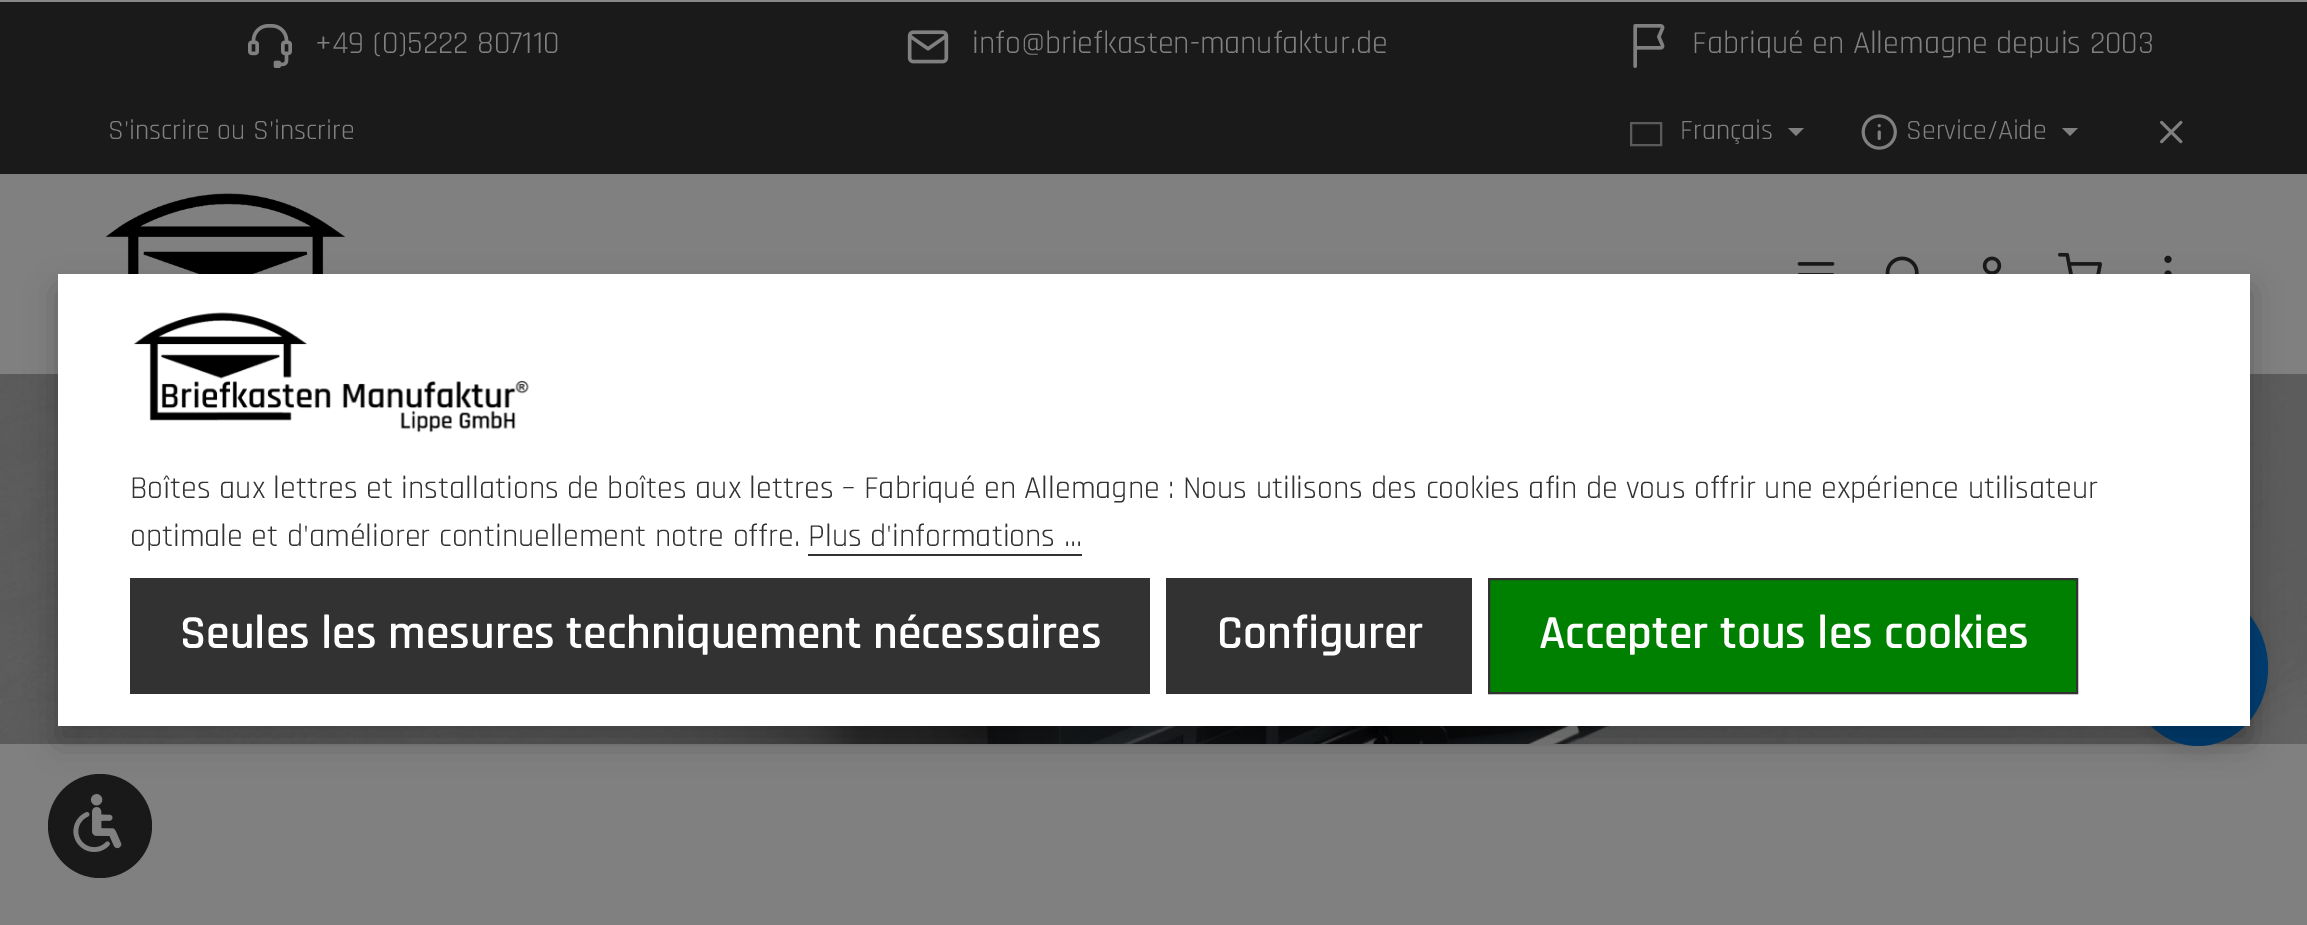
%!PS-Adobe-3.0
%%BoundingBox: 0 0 2307 925
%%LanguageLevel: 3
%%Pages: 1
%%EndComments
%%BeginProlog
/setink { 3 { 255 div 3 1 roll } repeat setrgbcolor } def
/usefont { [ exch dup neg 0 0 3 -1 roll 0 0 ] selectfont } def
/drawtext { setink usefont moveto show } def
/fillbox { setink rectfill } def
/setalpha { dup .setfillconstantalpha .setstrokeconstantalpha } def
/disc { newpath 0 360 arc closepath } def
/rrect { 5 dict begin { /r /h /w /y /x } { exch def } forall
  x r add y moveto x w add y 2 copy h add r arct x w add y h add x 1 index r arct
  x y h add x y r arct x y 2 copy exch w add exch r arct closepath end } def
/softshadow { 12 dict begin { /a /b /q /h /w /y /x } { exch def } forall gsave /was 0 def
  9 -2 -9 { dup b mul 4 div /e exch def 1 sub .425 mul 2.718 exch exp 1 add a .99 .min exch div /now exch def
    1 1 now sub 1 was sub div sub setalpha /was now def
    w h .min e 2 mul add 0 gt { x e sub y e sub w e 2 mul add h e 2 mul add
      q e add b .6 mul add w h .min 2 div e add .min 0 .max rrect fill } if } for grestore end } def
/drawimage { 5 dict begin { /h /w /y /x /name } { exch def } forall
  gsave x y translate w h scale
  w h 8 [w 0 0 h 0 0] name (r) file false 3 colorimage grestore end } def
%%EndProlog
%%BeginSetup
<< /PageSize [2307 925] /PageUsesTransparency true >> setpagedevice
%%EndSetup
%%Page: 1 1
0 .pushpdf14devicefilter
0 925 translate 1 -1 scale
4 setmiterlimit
0 0 2307 925 255 255 255 fillbox
(assets/img1.rgb) 0 2 2307 172 drawimage
(assets/img2.rgb) 248 24 44 44 drawimage
(+49 \(0\)5222 807110) 315 53 /Rajdhani-Regular 32 128 128 128 drawtext
(assets/img3.rgb) 907 30 42 34 drawimage
(info@briefkasten-manufaktur.de) 972 53 /Rajdhani-Regular 32 128 128 128 drawtext
(assets/img4.rgb) 1633 24 32 44 drawimage
(Fabriqué en Allemagne depuis 2003) 1692 53 /Rajdhani-Regular 32 128 128 128 drawtext
(S'inscrire) 108 139 /Rajdhani-Regular 28 128 128 128 drawtext
(ou) 217 139 /Rajdhani-Regular 28 128 128 128 drawtext
(S'inscrire) 253 139 /Rajdhani-Regular 28 128 128 128 drawtext
91 91 91 setink
2 setlinewidth
1631 123 30 22 rectstroke
(Français) 1680 139 /Rajdhani-Regular 28 128 128 128 drawtext
1788 128 moveto 1804 128 lineto 1796 136 lineto closepath fill
(assets/img5.rgb) 1861 114 36 36 drawimage
(Service/Aide) 1906 139 /Rajdhani-Regular 28 128 128 128 drawtext
2062 128 moveto 2078 128 lineto 2070 136 lineto closepath fill
(assets/img6.rgb) 2160 120 23 24 drawimage
0 174 2307 200 128 128 128 fillbox
(assets/img7.rgb) 105 193 241 81 drawimage
(assets/img8.rgb) 1797 262 38 12 drawimage
(assets/img9.rgb) 1885 256 34 18 drawimage
(assets/img10.rgb) 1982 256 20 18 drawimage
(assets/img11.rgb) 2058 252 44 22 drawimage
(assets/img12.rgb) 2164 255 8 19 drawimage
0 744 2307 181 128 128 128 fillbox
(assets/img13.rgb) 0 374 2307 370 drawimage
25 25 25 setink
100 826 52 disc fill
(assets/img14.rgb) 73 794 49 58 drawimage
0 0 2307 2 136 136 136 fillbox
0 0 0 setink
2128 598 140 156 70 8 0.1 softshadow
0 61 114 setink
2198 590 moveto 2236.5 590 2268 625 2268 668 curveto 2268 711 2236.5 746 2198 746 curveto 2159.5 746 2128 711 2128 668 curveto 2128 625 2159.5 590 2198 590 curveto closepath fill
0 0 0 setink
58 290 2192 452 0 16 0.25 softshadow
58 274 2192 452 255 255 255 fillbox
(assets/img15.rgb) 133 312 396 121 drawimage
(Boîtes aux lettres et installations de boîtes aux lettres – Fabriqué en Allemagne : Nous utilisons des cookies afin de vous offrir une expérience utilisateur) 130 498 /Rajdhani-Regular 32 50 50 50 drawtext
(optimale et d'améliorer continuellement notre offre. Plus d'informations ...) 130 546 /Rajdhani-Regular 32 50 50 50 drawtext
808 554 274 2 50 50 50 fillbox
130 578 1020 116 50 50 50 fillbox
(Seules les mesures techniquement nécessaires) 180 648 /Rajdhani-SemiBold 47.75 255 255 255 drawtext
1166 578 306 116 50 50 50 fillbox
(Configurer) 1217 648 /Rajdhani-SemiBold 47.75 255 255 255 drawtext
0 128 0 setink
1489 579 moveto 2077 579 lineto 2077 693 lineto 1489 693 lineto closepath gsave fill grestore
50 50 50 setink
stroke
(Accepter tous les cookies) 1539 648 /Rajdhani-SemiBold 47.75 255 255 255 drawtext
.poppdf14devicefilter showpage
%%EOF
